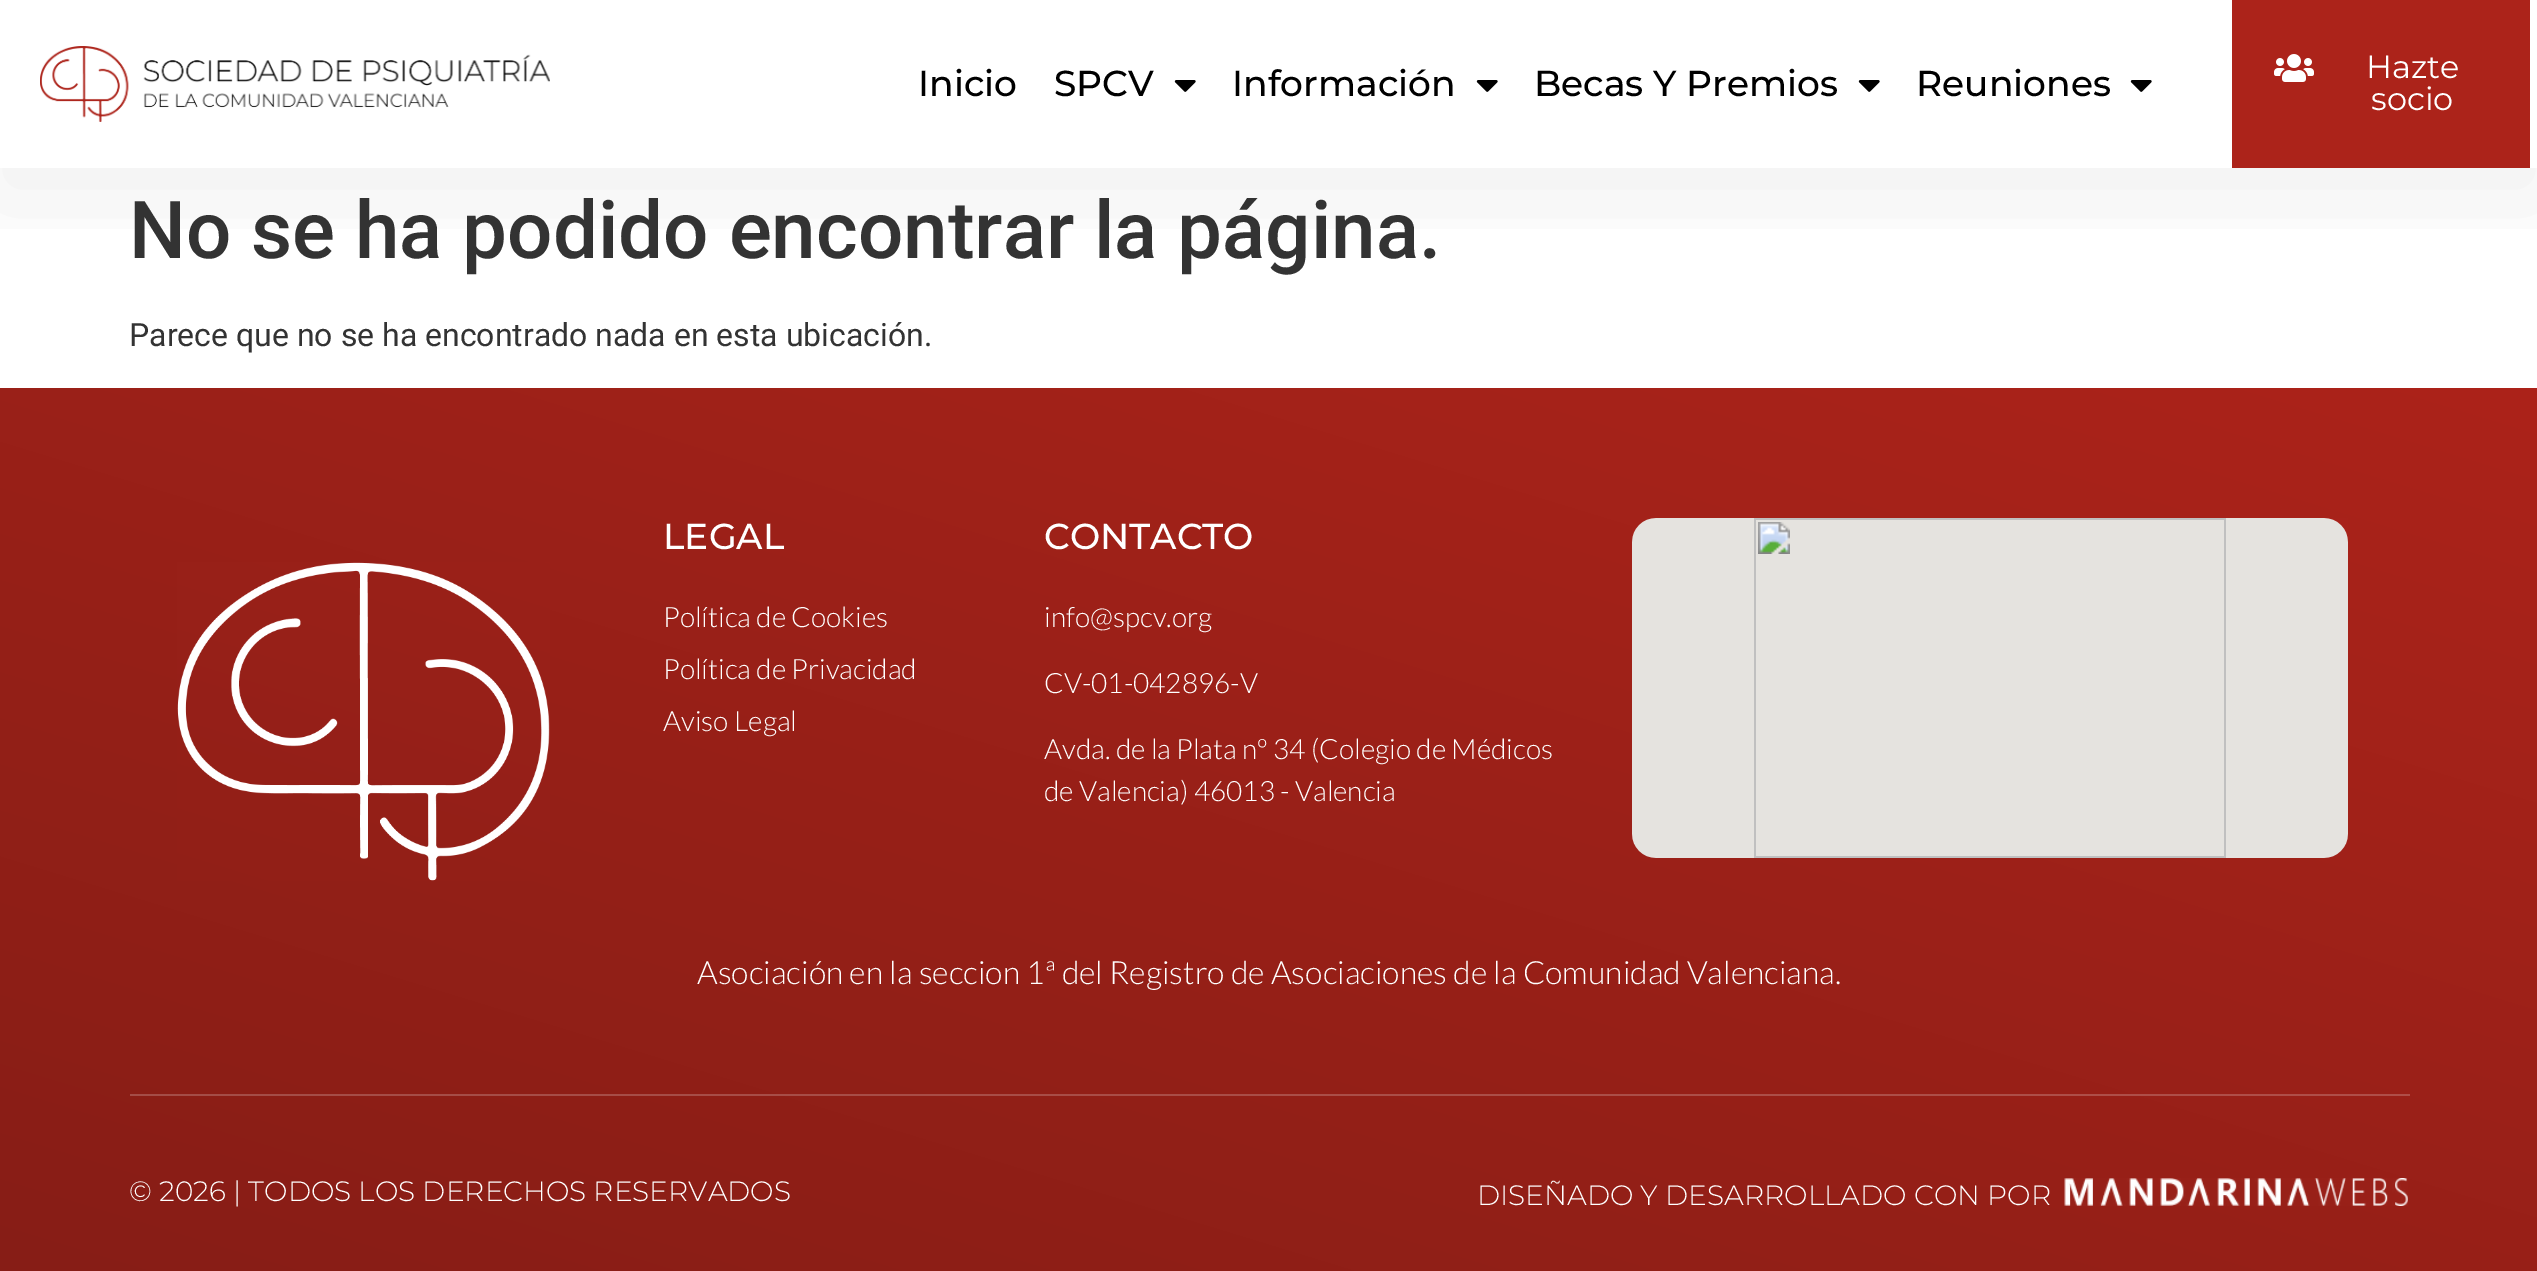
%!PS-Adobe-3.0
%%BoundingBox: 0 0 2537 1271
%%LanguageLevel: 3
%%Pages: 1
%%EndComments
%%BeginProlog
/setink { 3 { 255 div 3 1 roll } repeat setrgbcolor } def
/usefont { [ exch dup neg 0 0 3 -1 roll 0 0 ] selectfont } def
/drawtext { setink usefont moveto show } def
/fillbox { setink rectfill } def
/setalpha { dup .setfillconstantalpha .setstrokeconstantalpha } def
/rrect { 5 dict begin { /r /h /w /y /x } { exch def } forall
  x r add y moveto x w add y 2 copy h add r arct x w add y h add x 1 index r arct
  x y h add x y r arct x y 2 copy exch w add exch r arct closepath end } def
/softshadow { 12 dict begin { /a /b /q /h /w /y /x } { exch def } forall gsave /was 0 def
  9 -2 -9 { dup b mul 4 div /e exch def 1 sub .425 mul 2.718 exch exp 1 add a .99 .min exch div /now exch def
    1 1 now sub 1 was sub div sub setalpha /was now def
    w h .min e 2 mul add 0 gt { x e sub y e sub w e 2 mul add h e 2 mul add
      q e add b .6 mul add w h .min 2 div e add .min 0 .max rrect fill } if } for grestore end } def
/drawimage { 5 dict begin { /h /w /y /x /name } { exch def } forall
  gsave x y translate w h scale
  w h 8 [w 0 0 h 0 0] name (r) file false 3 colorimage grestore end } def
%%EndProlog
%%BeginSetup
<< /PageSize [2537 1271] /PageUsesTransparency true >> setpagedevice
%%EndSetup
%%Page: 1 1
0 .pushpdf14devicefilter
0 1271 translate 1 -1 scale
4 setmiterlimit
0 0 2537 1271 255 255 255 fillbox
gsave
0 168 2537 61 rectclip
0 0 0 setink
-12 12 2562 192 0 58 0.06 softshadow
grestore
(assets/img1.rgb) 40 46 510 76 drawimage
(Inicio) 918 96 /Montserrat-Medium 36 0 0 0 drawtext
(SPCV) 1054 96 /Montserrat-Medium 36 0 0 0 drawtext
(assets/img2.rgb) 1174 80 22 12 drawimage
(Información) 1232 96 /Montserrat-Medium 36 0 0 0 drawtext
(assets/img2.rgb) 1476 80 22 12 drawimage
(Becas Y Premios) 1534 96 /Montserrat-Medium 36 0 0 0 drawtext
(assets/img2.rgb) 1858 80 22 12 drawimage
(Reuniones) 1916 96 /Montserrat-Medium 36 0 0 0 drawtext
(assets/img2.rgb) 2130 80 22 12 drawimage
2232 0 298 168 172 35 26 fillbox
(assets/img3.rgb) 2274 54 40 28 drawimage
(Hazte) 2366 78 /Montserrat-Regular 32 255 255 255 drawtext
(socio) 2371 110 /Montserrat-Regular 32 255 255 255 drawtext
(No se ha podido encontrar la página.) 129 258 /Roboto-Medium 80 51 51 51 drawtext
(Parece que no se ha encontrado nada en esta ubicación.) 129 346 /Roboto-Regular 32 51 51 51 drawtext
gsave 0 388 moveto 2537 388 lineto 2537 1271 lineto 0 1271 lineto closepath clip newpath
<< /ShadingType 2 /ColorSpace /DeviceRGB /Coords [1507 73 1031 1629] /Extend [true true] /Function << /FunctionType 2 /Domain [0 1] /C0 [0.675 0.137 0.102] /C1 [0.525 0.114 0.086] /N 1 >> >> shfill grestore
gsave 130 1094 moveto 2410 1094 lineto 2410 1096 lineto 130 1096 lineto closepath clip newpath
<< /ShadingType 2 /ColorSpace /DeviceRGB /Coords [1507 73 1031 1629] /Extend [true true] /Function << /FunctionType 2 /Domain [0 1] /C0 [0.741 0.318 0.29] /C1 [0.624 0.298 0.278] /N 1 >> >> shfill grestore
(assets/img4.rgb) 177 562 373 319 drawimage
(LEGAL) 663 549 /Montserrat-Medium 36 255 255 255 drawtext
(Política de Cookies) 663 627 /Lato-Light 28 255 255 255 drawtext
(Política de Privacidad) 663 679 /Lato-Light 28 255 255 255 drawtext
(Aviso Legal) 663 731 /Lato-Light 28 255 255 255 drawtext
(CONTACTO) 1044 549 /Montserrat-Medium 36 255 255 255 drawtext
(info@spcv.org) 1044 627 /Lato-Light 28 255 255 255 drawtext
(CV-01-042896-V) 1044 693 /Lato-Light 28 255 255 255 drawtext
(Avda. de la Plata nº 34 \(Colegio de Médicos) 1044 759 /Lato-Light 28 255 255 255 drawtext
(de Valencia\) 46013 - Valencia) 1044 801 /Lato-Light 28 255 255 255 drawtext
(assets/img5.rgb) 1632 518 716 340 drawimage
(Asociación en la seccion 1ª del Registro de Asociaciones de la Comunidad Valenciana.) 697 984 /Lato-Light 32 255 255 255 drawtext
(© 2026 | TODOS LOS DERECHOS RESERVADOS) 129 1201 /Montserrat-Light 28 255 255 255 drawtext
(DISEÑADO Y DESARROLLADO CON POR) 1477 1205 /Montserrat-Light 28 255 255 255 drawtext
(assets/img6.rgb) 2064 1178 344 28 drawimage
.poppdf14devicefilter showpage
%%EOF
